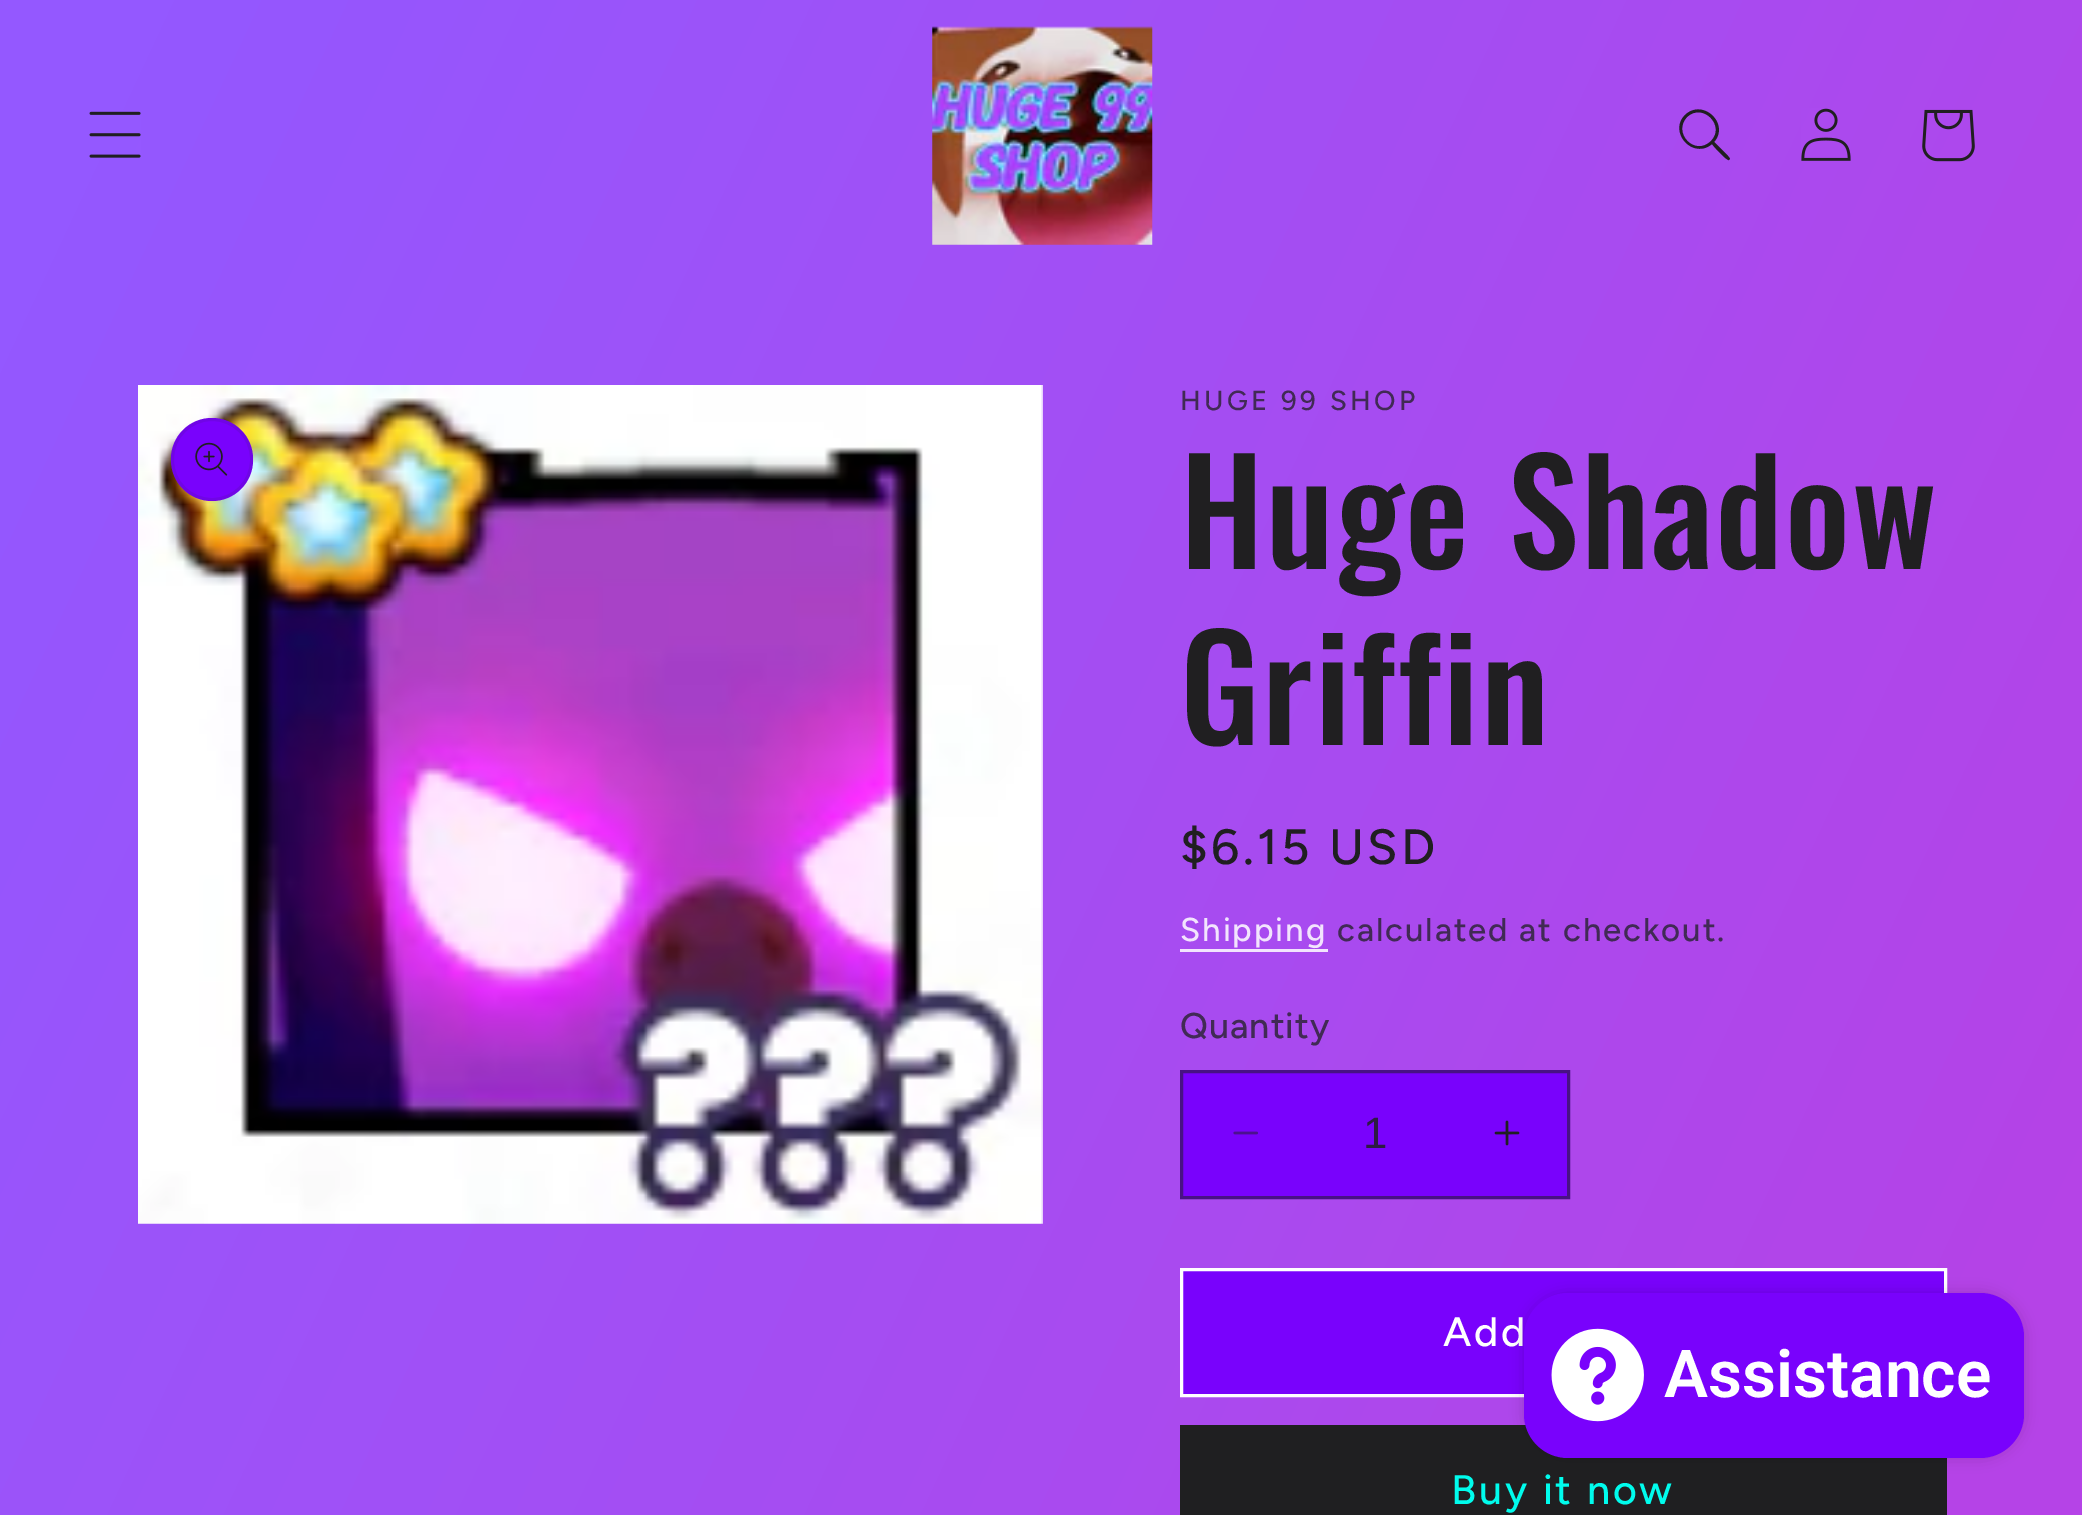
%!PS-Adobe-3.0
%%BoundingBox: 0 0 2082 1515
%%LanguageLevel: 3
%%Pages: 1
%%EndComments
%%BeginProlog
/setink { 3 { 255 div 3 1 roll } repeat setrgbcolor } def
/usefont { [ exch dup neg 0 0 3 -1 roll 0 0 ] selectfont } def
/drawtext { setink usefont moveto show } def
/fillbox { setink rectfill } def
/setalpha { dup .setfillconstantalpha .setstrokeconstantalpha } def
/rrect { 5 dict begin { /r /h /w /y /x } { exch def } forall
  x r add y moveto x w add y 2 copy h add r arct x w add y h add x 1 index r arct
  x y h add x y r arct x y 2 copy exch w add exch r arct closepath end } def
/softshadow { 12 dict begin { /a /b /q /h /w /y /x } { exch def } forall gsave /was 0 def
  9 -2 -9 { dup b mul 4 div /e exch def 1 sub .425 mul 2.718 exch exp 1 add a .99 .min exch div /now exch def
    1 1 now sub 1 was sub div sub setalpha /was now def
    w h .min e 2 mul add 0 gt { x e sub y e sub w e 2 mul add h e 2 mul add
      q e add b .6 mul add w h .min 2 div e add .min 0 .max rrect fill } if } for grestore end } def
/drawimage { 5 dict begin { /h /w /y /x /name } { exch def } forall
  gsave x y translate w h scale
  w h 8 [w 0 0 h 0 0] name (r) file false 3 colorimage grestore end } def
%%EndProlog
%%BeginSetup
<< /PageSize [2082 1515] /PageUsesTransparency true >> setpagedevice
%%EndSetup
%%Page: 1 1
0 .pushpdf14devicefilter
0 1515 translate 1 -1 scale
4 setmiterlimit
0 0 2082 1515 255 255 255 fillbox
gsave 0 0 moveto 2082 0 lineto 2082 1515 lineto 0 1515 lineto closepath clip newpath
<< /ShadingType 2 /ColorSpace /DeviceRGB /Coords [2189 1292 -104 223] /Extend [true true] /Function << /FunctionType 3 /Domain [0 1] /Functions [<< /FunctionType 2 /Domain [0 1] /C0 [0.71 0.263 0.906] /C1 [0.71 0.263 0.906] /N 1 >> << /FunctionType 2 /Domain [0 1] /C0 [0.71 0.263 0.906] /C1 [0.58 0.345 1] /N 1 >> << /FunctionType 2 /Domain [0 1] /C0 [0.58 0.345 1] /C1 [0.58 0.345 1] /N 1 >>] /Bounds [0.05 0.94] /Encode [0 1 0 1 0 1] >> >> shfill grestore
(assets/img1.rgb) 89 111 52 47 drawimage
(assets/img2.rgb) 932 26 221 219 drawimage
32 31 33 setink
1711 141 moveto 1695 157 1672 133 1687 117 curveto 1703 102 1726 126 1711 141 curveto closepath 1712 144 moveto 1693 160 1668 132 1685 115 curveto 1703 98 1730 124 1714 142 curveto 1716 144 1730 157 1730 159 curveto 1729 160 lineto 1727 161 1714 147 1712 144 curveto closepath eofill
(assets/img3.rgb) 1801 108 50 53 drawimage
(assets/img4.rgb) 1922 109 53 53 drawimage
(assets/img5.rgb) 138 385 905 839 drawimage
121 2 252 setink
171 418 82 83 41 rrect fill
0.1 setalpha
32 31 33 setink
3 setlinewidth
172.5 419.5 79 80 39.5 rrect stroke
1 setalpha
(assets/img6.rgb) 195 442 33 34 drawimage
/Figtree-Medium 27.5 usefont
65 42 85 setink
1180 410 moveto 3.5 0 (HUGE 99 SHOP) ashow
/Oswald-Medium 143 usefont
32 31 33 setink
1180 569 moveto 2.1 0 (Huge Shadow) ashow
1180 745 moveto 2.1 0 (Griffin) ashow
/Figtree-Medium 49.5 usefont
1180 864 moveto 3.5 0 ($6.15 USD) ashow
/Figtree-Medium 33 usefont
242 228 253 setink
1180 941 moveto 1.9 0 (Shipping) ashow
1180 949 148 3 242 228 253 fillbox
65 42 85 setink
1337 941 moveto 1.9 0 (calculated at checkout.) ashow
/Figtree-Medium 35.75 usefont
1180 1038 moveto 1 0 (Quantity) ashow
1183 1073 384 123 121 2 252 fillbox
(assets/img7.rgb) 1233 1131 25 4 drawimage
(assets/img8.rgb) 1494 1120 26 26 drawimage
72 18 132 setink
1181.5 1071.5 387 126 rectstroke
(1) 1363 1148 /LiberationSans-Regular 44 45 27 66 drawtext
1183 1271 761 123 121 2 252 fillbox
255 255 255 setink
1181.5 1269.5 764 126 rectstroke
/Figtree-Medium 41.25 usefont
1443 1346 moveto 2.75 0 (Add) ashow
1180 1425 767 90 31 31 33 fillbox
0 252 237 setink
1451 1504 moveto 2.75 0 (Buy it now) ashow
0 0 0 setink
1524 1293 500 165 44 7 0.15 softshadow
121 2 252 setink
1524 1293 500 165 44 rrect fill
(assets/img9.rgb) 1551 1328 93 94 drawimage
(Assistance) 1664 1397 /Roboto-SemiBold 66 255 255 255 drawtext
.poppdf14devicefilter showpage
%%EOF
